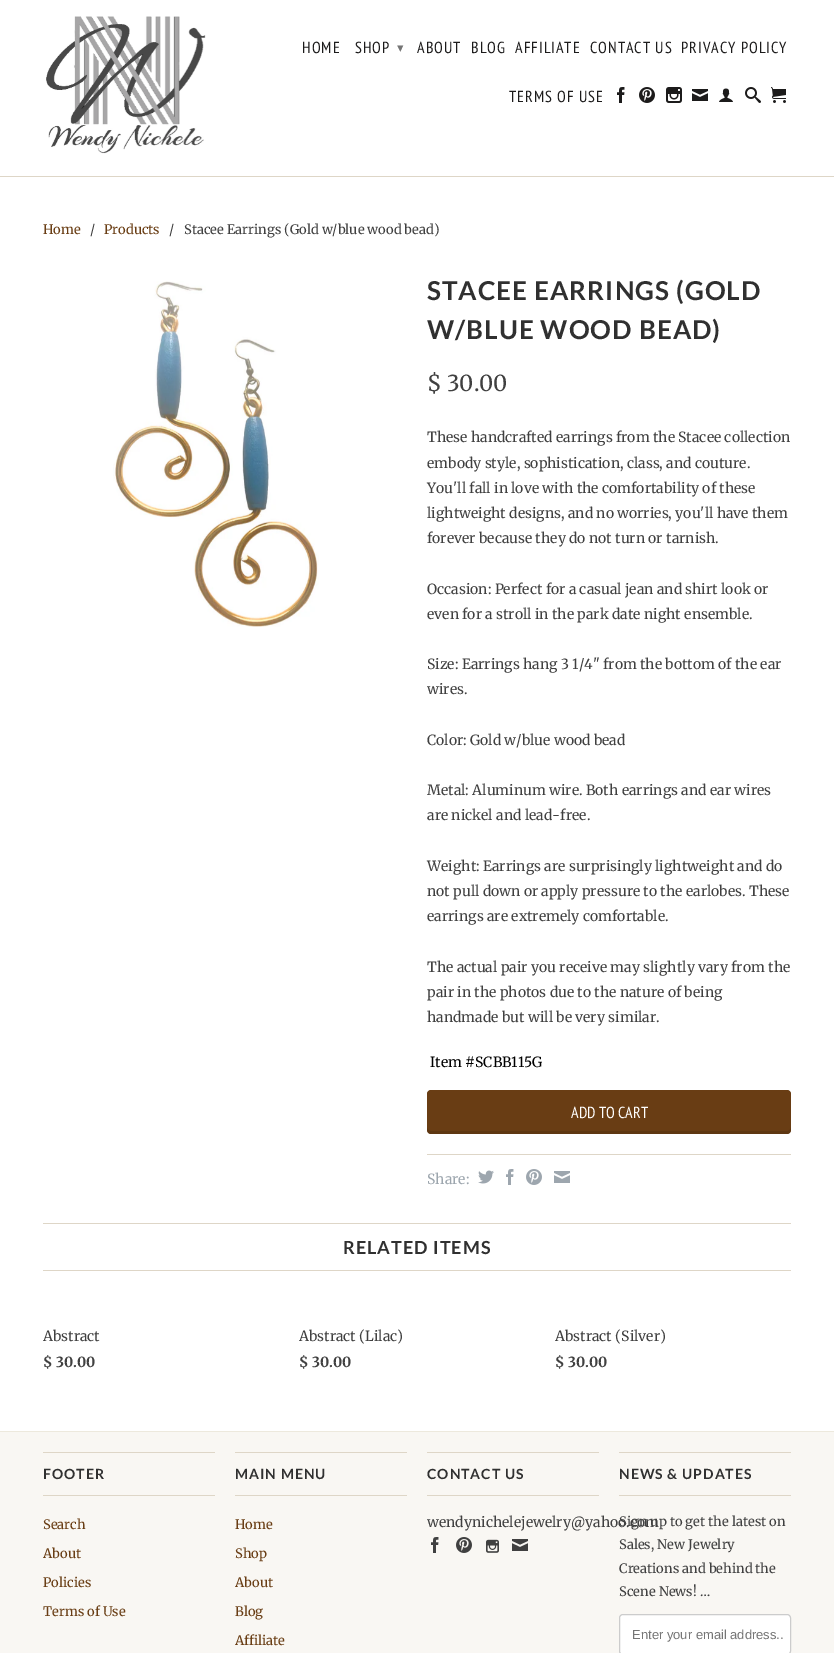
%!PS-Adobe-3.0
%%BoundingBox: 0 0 834 1653
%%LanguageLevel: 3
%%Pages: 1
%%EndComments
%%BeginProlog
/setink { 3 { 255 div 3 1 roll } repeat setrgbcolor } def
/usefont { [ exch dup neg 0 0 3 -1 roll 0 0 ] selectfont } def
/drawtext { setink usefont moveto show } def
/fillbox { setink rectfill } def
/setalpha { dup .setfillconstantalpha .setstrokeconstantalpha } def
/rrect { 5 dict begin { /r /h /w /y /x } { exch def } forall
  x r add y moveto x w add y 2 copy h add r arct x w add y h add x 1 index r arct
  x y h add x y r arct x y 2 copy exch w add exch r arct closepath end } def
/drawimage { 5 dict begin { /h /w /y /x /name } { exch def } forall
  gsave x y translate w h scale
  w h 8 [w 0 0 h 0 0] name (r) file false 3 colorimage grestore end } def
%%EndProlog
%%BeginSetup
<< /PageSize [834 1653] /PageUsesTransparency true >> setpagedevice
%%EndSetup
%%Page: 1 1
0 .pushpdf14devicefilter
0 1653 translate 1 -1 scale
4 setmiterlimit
0 0 834 1653 255 255 255 fillbox
0 176 834 1 222 214 199 fillbox
(assets/img1.rgb) 46 16 160 138 drawimage
/PTSansNarrow-Regular 16 usefont
28 27 27 setink
302 53 moveto 1 0 (HOME) ashow
355 53 moveto 1 0 (SHOP) ashow
/DejaVuSans-Regular 13 usefont
117 117 117 setink
397 52 moveto 1 0 (▾) ashow
/PTSansNarrow-Regular 16 usefont
28 27 27 setink
417 53 moveto 1 0 (ABOUT) ashow
471 53 moveto 1 0 (BLOG) ashow
515 53 moveto 1 0 (AFFILIATE) ashow
590 53 moveto 1 0 (CONTACT US) ashow
681 53 moveto 1 0 (PRIVACY POLICY) ashow
509 102 moveto 1 0 (TERMS OF USE) ashow
(assets/img2.rgb) 617 87 8 16 drawimage
(assets/img3.rgb) 639 87 16 16 drawimage
(assets/img4.rgb) 666 87 16 16 drawimage
(assets/img5.rgb) 692 89 16 12 drawimage
(assets/img6.rgb) 719 88 14 14 drawimage
(assets/img7.rgb) 745 87 16 16 drawimage
(assets/img8.rgb) 771 87 15 16 drawimage
(Home) 43 234 /Merriweather-Regular 13 105 61 20 drawtext
(/) 90 234 /Merriweather-Regular 13 64 64 64 drawtext
(Products) 104 234 /Merriweather-Regular 13 105 61 20 drawtext
(/) 169 234 /Merriweather-Regular 13 64 64 64 drawtext
(Stacee Earrings \(Gold w/blue wood bead\)) 184 234 /Merriweather-Regular 13 64 64 64 drawtext
(assets/img9.rgb) 113 281 206 346 drawimage
/Lato-Bold 26 usefont
48 48 48 setink
427 300 moveto 1 0 (STACEE EARRINGS \(GOLD) ashow
427 339 moveto 1 0 (W/BLUE WOOD BEAD\)) ashow
($ 30.00) 427 391 /Merriweather-Regular 22 64 64 64 drawtext
(These handcrafted earrings from the Stacee collection) 427 442 /Merriweather-Regular 14 64 64 64 drawtext
(embody style, sophistication, class, and couture.) 427 468 /Merriweather-Regular 14 64 64 64 drawtext
(You'll fall in love with the comfortability of these) 427 493 /Merriweather-Regular 14 64 64 64 drawtext
(lightweight designs, and no worries, you'll have them) 427 518 /Merriweather-Regular 14 64 64 64 drawtext
(forever because they do not turn or tarnish.) 427 543 /Merriweather-Regular 14 64 64 64 drawtext
(Occasion: Perfect for a casual jean and shirt look or) 427 594 /Merriweather-Regular 14 64 64 64 drawtext
(even for a stroll in the park date night ensemble.) 427 619 /Merriweather-Regular 14 64 64 64 drawtext
(Size: Earrings hang 3 1/4" from the bottom of the ear) 427 669 /Merriweather-Regular 14 64 64 64 drawtext
(wires.) 427 694 /Merriweather-Regular 14 64 64 64 drawtext
(Color: Gold w/blue wood bead) 427 745 /Merriweather-Regular 14 64 64 64 drawtext
(Metal: Aluminum wire. Both earrings and ear wires) 427 795 /Merriweather-Regular 14 64 64 64 drawtext
(are nickel and lead-free.) 427 820 /Merriweather-Regular 14 64 64 64 drawtext
(Weight: Earrings are surprisingly lightweight and do) 427 871 /Merriweather-Regular 14 64 64 64 drawtext
(not pull down or apply pressure to the earlobes. These) 427 896 /Merriweather-Regular 14 64 64 64 drawtext
(earrings are extremely comfortable.) 427 921 /Merriweather-Regular 14 64 64 64 drawtext
(The actual pair you receive may slightly vary from the) 427 972 /Merriweather-Regular 14 64 64 64 drawtext
(pair in the photos due to the nature of being) 427 997 /Merriweather-Regular 14 64 64 64 drawtext
(handmade but will be very similar.) 427 1022 /Merriweather-Regular 14 64 64 64 drawtext
(Item #SCBB115G) 430 1067 /Merriweather-Regular 14 0 0 0 drawtext
105 61 20 setink
427 1090 364 44 4 rrect fill
0.1 setalpha
0 0 0 setink
427 1127 moveto 427 1130 427 1134 431 1134 curveto 787 1134 lineto 791 1134 791 1130 791 1127 curveto 791 1129 789 1131 787 1131 curveto 431 1131 lineto 429 1131 427 1129 427 1127 curveto closepath fill
1 setalpha
(ADD TO CART) 571 1118 /PTSansNarrow-Regular 16 255 255 255 drawtext
427 1154 364 1 222 214 199 fillbox
(Share:) 427 1184 /Merriweather-Regular 14 157 166 174 drawtext
(assets/img10.rgb) 478 1170 16 14 drawimage
(assets/img11.rgb) 506 1169 8 16 drawimage
(assets/img12.rgb) 526 1169 16 16 drawimage
(assets/img13.rgb) 554 1171 16 12 drawimage
43 1223 748 1 222 214 199 fillbox
43 1270 748 1 222 214 199 fillbox
/Lato-Bold 18 usefont
48 48 48 setink
343 1254 moveto 1 0 (RELATED ITEMS) ashow
(Abstract) 43 1341 /Merriweather-Regular 14 64 64 64 drawtext
($ 30.00) 43 1367 /Merriweather-Bold 14 64 64 64 drawtext
(Abstract \(Lilac\)) 299 1341 /Merriweather-Regular 14 64 64 64 drawtext
($ 30.00) 299 1367 /Merriweather-Bold 14 64 64 64 drawtext
(Abstract \(Silver\)) 555 1341 /Merriweather-Regular 14 64 64 64 drawtext
($ 30.00) 555 1367 /Merriweather-Bold 14 64 64 64 drawtext
0 1432 834 221 249 247 243 fillbox
0 1431 834 1 237 233 221 fillbox
43 1452 172 1 222 214 199 fillbox
43 1495 172 1 222 214 199 fillbox
/Lato-Bold 14 usefont
48 48 48 setink
43 1479 moveto 1 0 (FOOTER) ashow
(Search) 43 1529 /Merriweather-Regular 13 105 61 20 drawtext
(About) 43 1558 /Merriweather-Regular 13 105 61 20 drawtext
(Policies) 43 1587 /Merriweather-Regular 13 105 61 20 drawtext
(Terms of Use) 43 1616 /Merriweather-Regular 13 105 61 20 drawtext
235 1452 172 1 222 214 199 fillbox
235 1495 172 1 222 214 199 fillbox
/Lato-Bold 14 usefont
48 48 48 setink
235 1479 moveto 1 0 (MAIN MENU) ashow
(Home) 235 1529 /Merriweather-Regular 13 105 61 20 drawtext
(Shop) 235 1558 /Merriweather-Regular 13 105 61 20 drawtext
(About) 235 1587 /Merriweather-Regular 13 105 61 20 drawtext
(Blog) 235 1616 /Merriweather-Regular 13 105 61 20 drawtext
(Affiliate) 235 1645 /Merriweather-Regular 13 105 61 20 drawtext
427 1452 172 1 222 214 199 fillbox
427 1495 172 1 222 214 199 fillbox
/Lato-Bold 14 usefont
48 48 48 setink
427 1479 moveto 1 0 (CONTACT US) ashow
(wendynichelejewelry@yahoo.com) 427 1527 /Merriweather-Regular 14 64 64 64 drawtext
(assets/img14.rgb) 431 1537 8 16 drawimage
(assets/img15.rgb) 456 1537 16 16 drawimage
(assets/img16.rgb) 486 1539 13 14 drawimage
(assets/img17.rgb) 512 1539 16 12 drawimage
619 1452 172 1 222 214 199 fillbox
619 1495 172 1 222 214 199 fillbox
/Lato-Bold 14 usefont
48 48 48 setink
619 1479 moveto 1 0 (NEWS & UPDATES) ashow
(Sign up to get the latest on) 619 1526 /Merriweather-Regular 13 64 64 64 drawtext
(Sales, New Jewelry) 619 1549 /Merriweather-Regular 13 64 64 64 drawtext
(Creations and behind the) 619 1573 /Merriweather-Regular 13 64 64 64 drawtext
(Scene News! …) 619 1596 /Merriweather-Regular 13 64 64 64 drawtext
255 255 255 setink
619.5 1614.5 171 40 3.5 rrect gsave fill grestore
204 204 204 setink
stroke
(Enter your email address..) 632 1639 /LiberationSans-Regular 13 117 117 117 drawtext
.poppdf14devicefilter showpage
%%EOF
